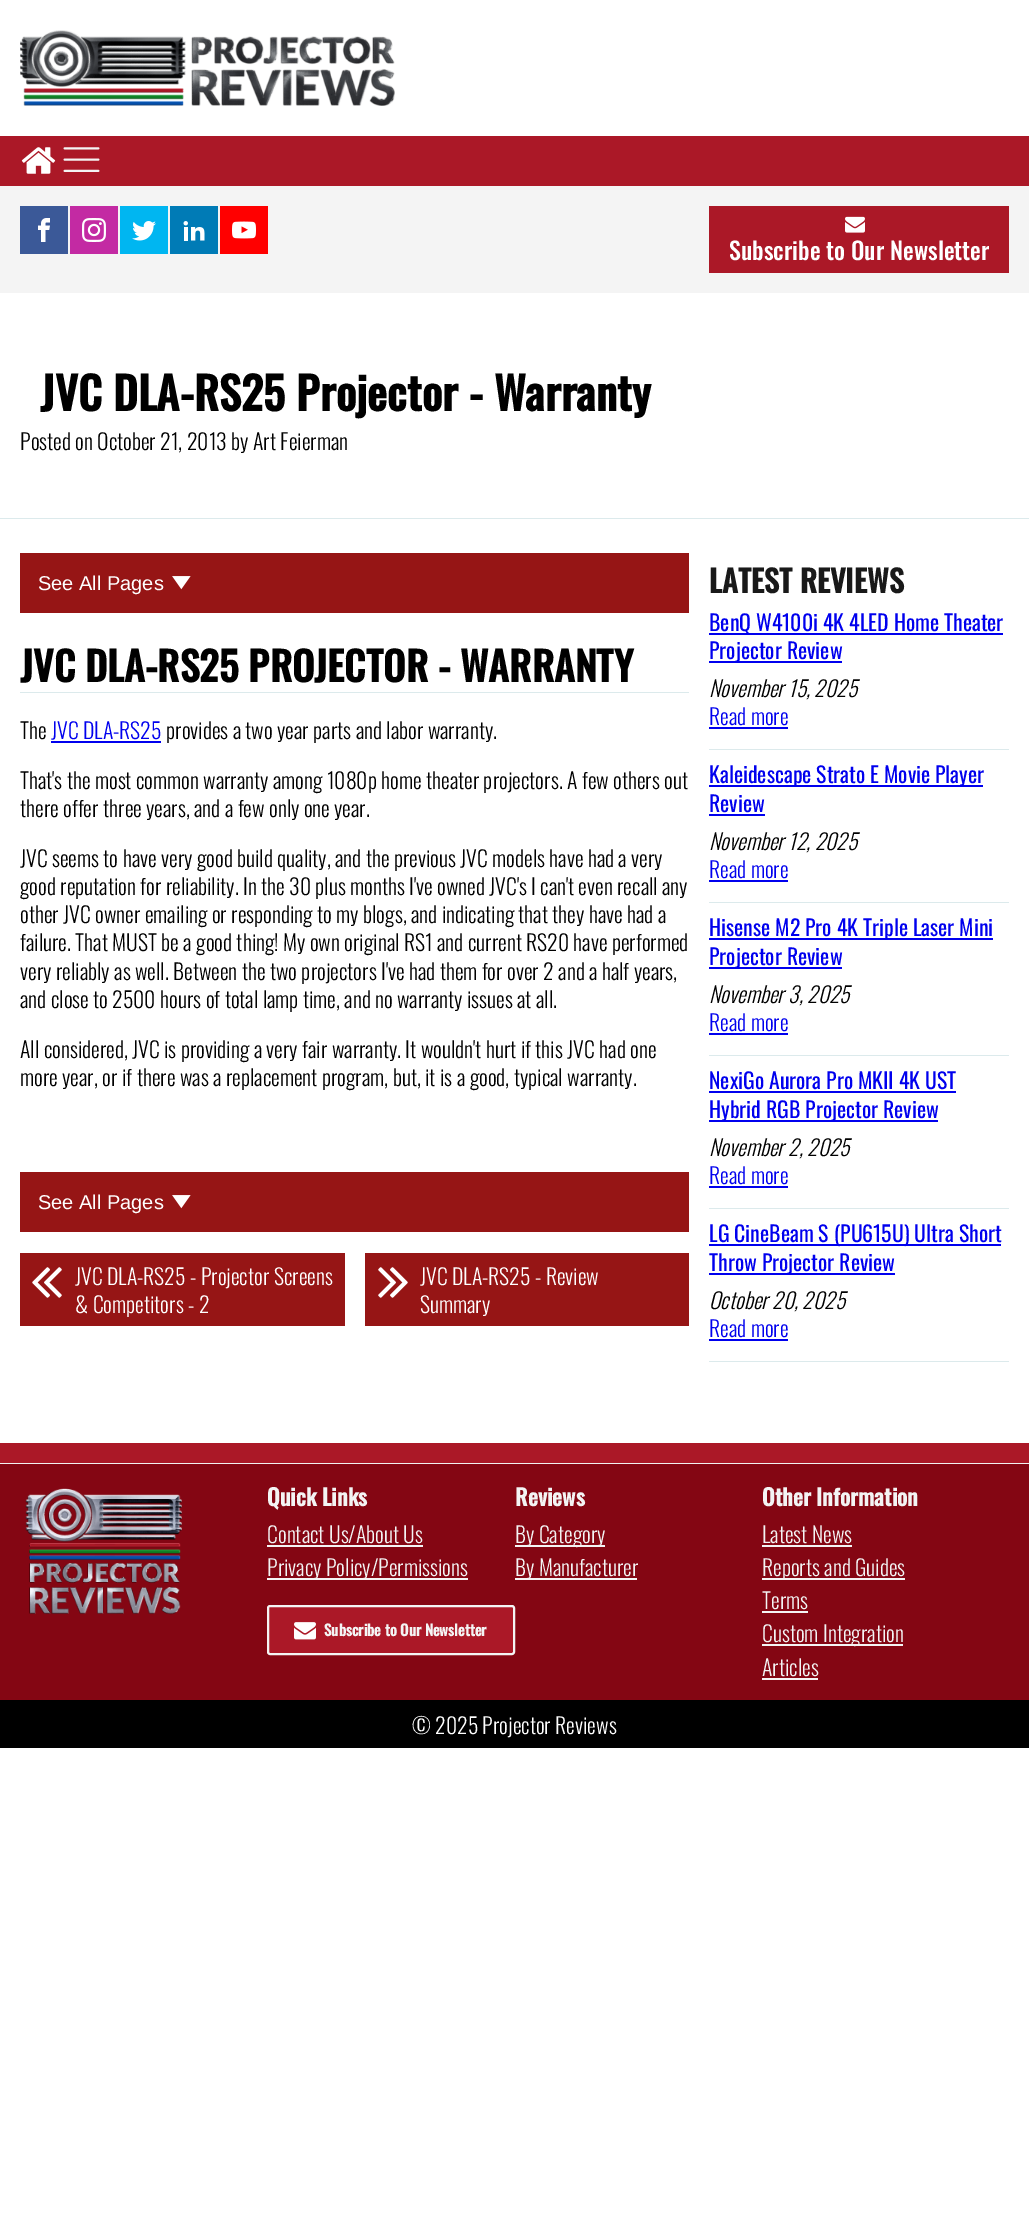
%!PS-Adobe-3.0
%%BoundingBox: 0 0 1029 2237
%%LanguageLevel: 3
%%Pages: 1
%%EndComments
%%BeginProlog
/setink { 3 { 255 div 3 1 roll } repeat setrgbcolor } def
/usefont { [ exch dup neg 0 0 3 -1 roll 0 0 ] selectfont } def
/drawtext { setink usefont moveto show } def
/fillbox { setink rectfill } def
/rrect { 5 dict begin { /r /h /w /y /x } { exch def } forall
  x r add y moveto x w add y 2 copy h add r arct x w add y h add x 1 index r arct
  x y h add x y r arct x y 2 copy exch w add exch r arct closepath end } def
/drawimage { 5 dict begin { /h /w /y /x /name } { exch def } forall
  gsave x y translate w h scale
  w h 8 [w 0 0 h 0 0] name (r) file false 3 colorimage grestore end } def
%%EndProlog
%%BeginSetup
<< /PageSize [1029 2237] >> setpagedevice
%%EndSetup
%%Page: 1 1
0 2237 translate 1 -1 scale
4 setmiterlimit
0 0 1029 2237 255 255 255 fillbox
(assets/img1.rgb) 20 30 375 76 drawimage
0 136 1029 50 171 24 39 fillbox
(assets/img2.rgb) 21 147 35 27 drawimage
(assets/img3.rgb) 63 147 37 25 drawimage
0 186 1029 107 244 244 244 fillbox
20 206 48 48 59 89 152 fillbox
(assets/img4.rgb) 38 218 12 24 drawimage
70 206 48 48 195 42 163 fillbox
(assets/img5.rgb) 82 218 24 24 drawimage
120 206 48 48 0 182 241 fillbox
(assets/img6.rgb) 132 221 24 20 drawimage
170 206 48 48 0 123 182 fillbox
(assets/img7.rgb) 183 221 22 20 drawimage
220 206 48 48 255 0 0 fillbox
(assets/img8.rgb) 232 221 24 18 drawimage
709 206 300 67 171 24 39 fillbox
(assets/img9.rgb) 845 216 20 17 drawimage
(Subscribe to Our Newsletter) 729 260 /Oswald-Medium 24 255 255 255 drawtext
0 518 1029 1 220 234 236 fillbox
(JVC DLA-RS25 Projector - Warranty) 40 411 /Oswald-Bold 44.75 0 0 0 drawtext
(Posted on October 21, 2013 by Art Feierman) 20 450 /Oswald-Light 21.75 0 0 0 drawtext
20 553 669 60 150 21 21 fillbox
(See All Pages) 38 590 /LiberationSans-Regular 20 255 255 255 drawtext
(assets/img10.rgb) 172 576 19 14 drawimage
20 692 669 1 220 234 236 fillbox
(JVC DLA-RS25 PROJECTOR - WARRANTY) 20 682 /Oswald-Bold 39.9 0 0 0 drawtext
(The) 20 739 /Oswald-Light 21.75 0 0 0 drawtext
(JVC DLA-RS25) 51 739 /Oswald-Light 21.75 0 0 238 drawtext
51 741 110 2 0 0 238 fillbox
(provides a two year parts and labor warranty.) 166 739 /Oswald-Light 21.75 0 0 0 drawtext
(That's the most common warranty among 1080p home theater projectors. A few others out) 20 789 /Oswald-Light 21.75 0 0 0 drawtext
(there offer three years, and a few only one year.) 20 817 /Oswald-Light 21.75 0 0 0 drawtext
(JVC seems to have very good build quality, and the previous JVC models have had a very) 20 867 /Oswald-Light 21.75 0 0 0 drawtext
(good reputation for reliability. In the 30 plus months I've owned JVC's I can't even recall any) 20 895 /Oswald-Light 21.75 0 0 0 drawtext
(other JVC owner emailing or responding to my blogs, and indicating that they have had a) 20 923 /Oswald-Light 21.75 0 0 0 drawtext
(failure. That MUST be a good thing! My own original RS1 and current RS20 have performed) 20 951 /Oswald-Light 21.75 0 0 0 drawtext
(very reliably as well. Between the two projectors I've had them for over 2 and a half years,) 20 980 /Oswald-Light 21.75 0 0 0 drawtext
(and close to 2500 hours of total lamp time, and no warranty issues at all.) 20 1008 /Oswald-Light 21.75 0 0 0 drawtext
(All considered, JVC is providing a very fair warranty. It wouldn't hurt if this JVC had one) 20 1058 /Oswald-Light 21.75 0 0 0 drawtext
(more year, or if there was a replacement program, but, it is a good, typical warranty.) 20 1086 /Oswald-Light 21.75 0 0 0 drawtext
20 1172 669 60 150 21 21 fillbox
(See All Pages) 38 1209 /LiberationSans-Regular 20 255 255 255 drawtext
(assets/img10.rgb) 172 1195 19 14 drawimage
20 1253 325 73 150 21 21 fillbox
(assets/img11.rgb) 32 1267 30 31 drawimage
(JVC DLA-RS25 - Projector Screens) 75 1285 /Oswald-Light 21.75 255 255 255 drawtext
(& Competitors - 2) 75 1313 /Oswald-Light 21.75 255 255 255 drawtext
365 1253 324 73 150 21 21 fillbox
(assets/img12.rgb) 378 1267 30 31 drawimage
(JVC DLA-RS25 - Review) 420 1285 /Oswald-Light 21.75 255 255 255 drawtext
(Summary) 420 1313 /Oswald-Light 21.75 255 255 255 drawtext
(LATEST REVIEWS) 709 593 /Oswald-Bold 30.5 25 25 25 drawtext
709 749 300 1 220 234 236 fillbox
709 633 294 2 0 0 238 fillbox
(BenQ W4100i 4K 4LED Home Theater) 709 631 /Oswald-Regular 21.75 0 0 238 drawtext
709 661 133 2 0 0 238 fillbox
(Projector Review) 709 659 /Oswald-Regular 21.75 0 0 238 drawtext
(November 15, 2025) 709 697 /Oswald-LightItalic 21.75 0 0 0 drawtext
(Read more) 709 725 /Oswald-Light 21.75 0 0 238 drawtext
709 727 79 2 0 0 238 fillbox
709 902 300 1 220 234 236 fillbox
709 785 274 2 0 0 238 fillbox
(Kaleidescape Strato E Movie Player) 709 783 /Oswald-Regular 21.75 0 0 238 drawtext
(Review) 709 812 /Oswald-Regular 21.75 0 0 238 drawtext
709 814 56 2 0 0 238 fillbox
(November 12, 2025) 709 850 /Oswald-LightItalic 21.75 0 0 0 drawtext
(Read more) 709 878 /Oswald-Light 21.75 0 0 238 drawtext
709 880 79 2 0 0 238 fillbox
709 1055 300 1 220 234 236 fillbox
709 938 284 2 0 0 238 fillbox
(Hisense M2 Pro 4K Triple Laser Mini) 709 936 /Oswald-Regular 21.75 0 0 238 drawtext
709 967 133 2 0 0 238 fillbox
(Projector Review) 709 965 /Oswald-Regular 21.75 0 0 238 drawtext
(November 3, 2025) 709 1003 /Oswald-LightItalic 21.75 0 0 0 drawtext
(Read more) 709 1031 /Oswald-Light 21.75 0 0 238 drawtext
709 1033 79 2 0 0 238 fillbox
709 1208 300 1 220 234 236 fillbox
(NexiGo Aurora Pro MKII 4K UST) 709 1089 /Oswald-Regular 21.75 0 0 238 drawtext
709 1091 247 2 0 0 238 fillbox
709 1120 229 2 0 0 238 fillbox
(Hybrid RGB Projector Review) 709 1118 /Oswald-Regular 21.75 0 0 238 drawtext
(November 2, 2025) 709 1156 /Oswald-LightItalic 21.75 0 0 0 drawtext
(Read more) 709 1184 /Oswald-Light 21.75 0 0 238 drawtext
709 1186 79 2 0 0 238 fillbox
709 1361 300 1 220 234 236 fillbox
709 1244 292 2 0 0 238 fillbox
(LG CineBeam S \(PU615U\) Ultra Short) 709 1242 /Oswald-Regular 21.75 0 0 238 drawtext
709 1273 186 2 0 0 238 fillbox
(Throw Projector Review) 709 1271 /Oswald-Regular 21.75 0 0 238 drawtext
(October 20, 2025) 709 1309 /Oswald-LightItalic 21.75 0 0 0 drawtext
(Read more) 709 1337 /Oswald-Light 21.75 0 0 238 drawtext
709 1339 79 2 0 0 238 fillbox
0 1443 1029 20 171 24 39 fillbox
0 1463 1029 1 242 242 242 fillbox
0 1464 1029 236 132 6 19 fillbox
(assets/img13.rgb) 25 1488 157 127 drawimage
(Quick Links) 267 1506 /Oswald-Bold 22.5 244 244 244 drawtext
(Contact Us/About Us) 267 1543 /Oswald-Light 21.75 244 244 244 drawtext
267 1545 156 2 244 244 244 fillbox
267 1578 201 2 244 244 244 fillbox
(Privacy Policy/Permissions) 267 1576 /Oswald-Light 21.75 244 244 244 drawtext
171 24 39 setink
268 1606 246 48 2 rrect gsave fill grestore
244 244 244 setink
2 setlinewidth
stroke
(assets/img14.rgb) 294 1622 22 18 drawimage
(Subscribe to Our Newsletter) 324 1636 /Oswald-Bold 15 244 244 244 drawtext
(Reviews) 515 1506 /Oswald-Bold 22.5 244 244 244 drawtext
515 1545 90 2 244 244 244 fillbox
(By Category) 515 1543 /Oswald-Light 21.75 244 244 244 drawtext
515 1578 122 2 244 244 244 fillbox
(By Manufacturer) 515 1576 /Oswald-Light 21.75 244 244 244 drawtext
(Other Information) 762 1506 /Oswald-Bold 22.5 244 244 244 drawtext
(Latest News) 762 1543 /Oswald-Light 21.75 244 244 244 drawtext
762 1545 90 2 244 244 244 fillbox
762 1578 143 2 244 244 244 fillbox
(Reports and Guides) 762 1576 /Oswald-Light 21.75 244 244 244 drawtext
(Terms) 762 1609 /Oswald-Light 21.75 244 244 244 drawtext
762 1611 46 2 244 244 244 fillbox
762 1644 141 2 244 244 244 fillbox
(Custom Integration) 762 1642 /Oswald-Light 21.75 244 244 244 drawtext
(Articles) 762 1676 /Oswald-Light 21.75 244 244 244 drawtext
762 1678 56 2 244 244 244 fillbox
0 1700 1029 48 0 0 0 fillbox
(© 2025 Projector Reviews) 412 1734 /Oswald-Light 21.75 255 255 255 drawtext
showpage
%%EOF
